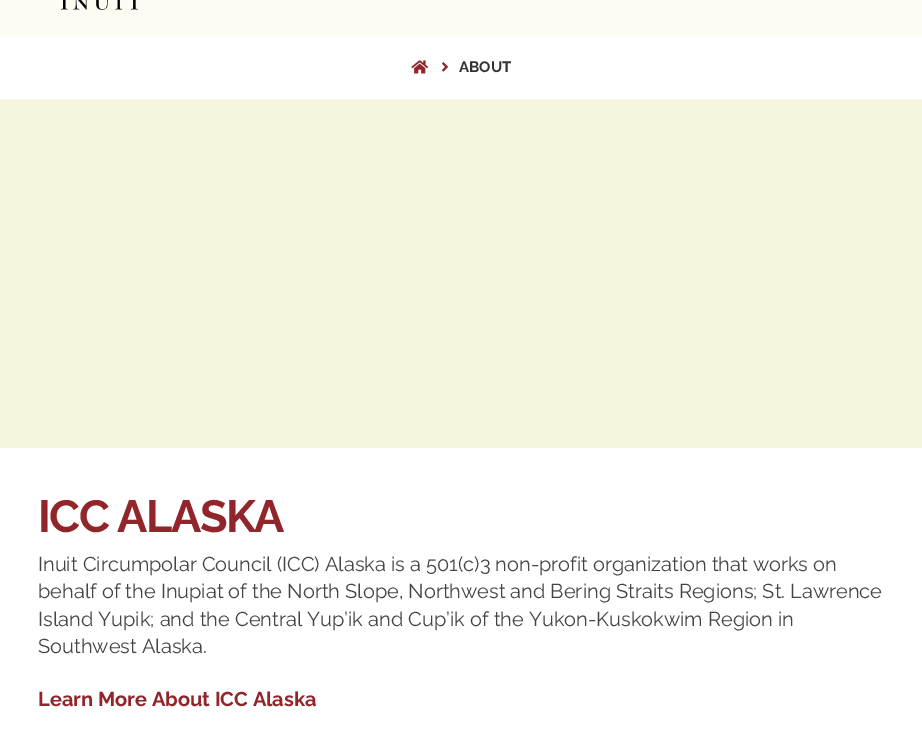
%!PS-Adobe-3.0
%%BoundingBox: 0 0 922 744
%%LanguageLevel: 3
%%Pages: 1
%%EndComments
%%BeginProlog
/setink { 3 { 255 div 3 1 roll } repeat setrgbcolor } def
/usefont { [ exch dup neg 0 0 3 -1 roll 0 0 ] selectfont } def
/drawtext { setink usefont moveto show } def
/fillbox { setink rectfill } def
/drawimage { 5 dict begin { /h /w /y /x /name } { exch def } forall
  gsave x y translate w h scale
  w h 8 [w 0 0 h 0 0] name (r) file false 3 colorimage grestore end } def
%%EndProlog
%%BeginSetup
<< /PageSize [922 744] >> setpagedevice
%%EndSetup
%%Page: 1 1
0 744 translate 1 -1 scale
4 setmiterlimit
0 0 922 744 246 246 222 fillbox
0 0 922 35 252 252 242 fillbox
0 35 922 3 254 254 249 fillbox
(assets/img1.rgb) 60 0 78 10 drawimage
0 38 922 61 255 255 255 fillbox
(assets/img2.rgb) 411 60 18 14 drawimage
(assets/img3.rgb) 442 62 6 10 drawimage
(ABOUT) 459 72 /Raleway-Bold 15 51 51 51 drawtext
0 448 922 296 255 255 255 fillbox
/Raleway-Bold 45 usefont
145 37 42 setink
38 532 moveto -1.5 0 (ICC ALASKA) ashow
(Inuit Circumpolar Council \(ICC\) Alaska is a 501\(c\)3 non-profit organization that works on) 38 571 /Raleway-Regular 20 68 68 68 drawtext
(behalf of the Inupiat of the North Slope, Northwest and Bering Straits Regions; St. Lawrence) 38 598 /Raleway-Regular 20 68 68 68 drawtext
(Island Yupik; and the Central Yup’ik and Cup’ik of the Yukon-Kuskokwim Region in) 38 626 /Raleway-Regular 20 68 68 68 drawtext
(Southwest Alaska.) 38 653 /Raleway-Regular 20 68 68 68 drawtext
(Learn More About ICC Alaska) 38 706 /Raleway-Bold 20 145 37 42 drawtext
showpage
%%EOF
